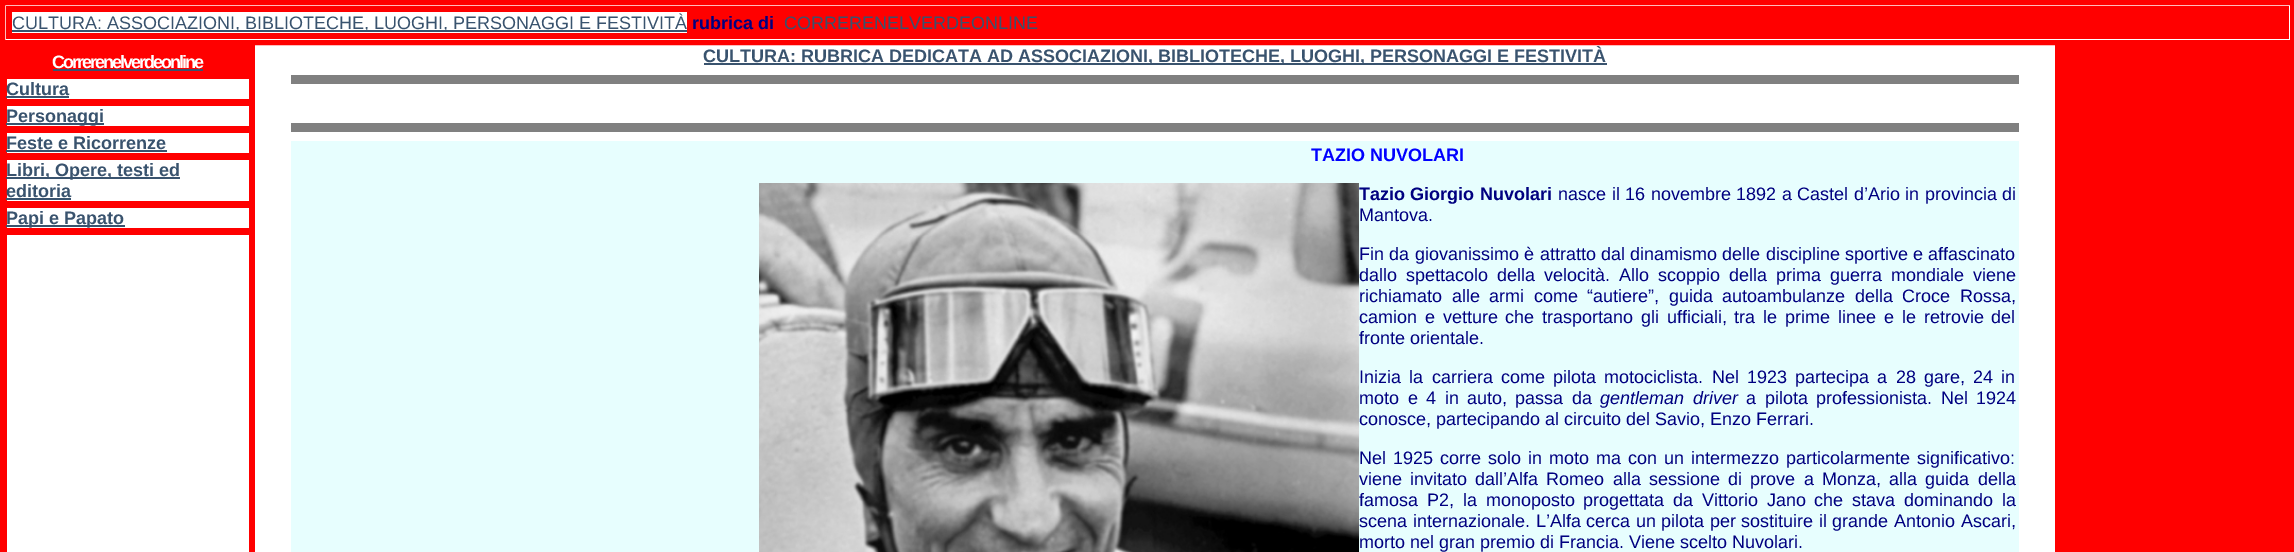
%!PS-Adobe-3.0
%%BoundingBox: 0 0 2294 552
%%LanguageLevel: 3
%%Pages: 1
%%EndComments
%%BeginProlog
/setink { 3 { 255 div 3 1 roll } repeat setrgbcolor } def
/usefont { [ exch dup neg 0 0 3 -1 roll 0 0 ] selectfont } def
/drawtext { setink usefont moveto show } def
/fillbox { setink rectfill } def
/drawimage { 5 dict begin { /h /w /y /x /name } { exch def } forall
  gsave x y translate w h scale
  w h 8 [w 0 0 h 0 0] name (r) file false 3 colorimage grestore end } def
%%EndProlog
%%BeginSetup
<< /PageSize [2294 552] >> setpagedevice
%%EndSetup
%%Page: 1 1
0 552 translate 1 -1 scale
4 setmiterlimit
0 0 2294 552 255 255 255 fillbox
255 0 0 setink
5 setlinewidth
2.5 2.5 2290 40 rectstroke
6 6 2283 33 255 0 0 fillbox
12 12 675 21 255 255 255 fillbox
12 30 675 2 57 83 110 fillbox
(CULTURA: ASSOCIAZIONI, BIBLIOTECHE, LUOGHI, PERSONAGGI E FESTIVITÀ) 12 29 /LiberationSans-Regular 18 57 83 110 drawtext
(rubrica di) 692 29 /LiberationSans-Bold 18 0 0 128 drawtext
(CORRERENELVERDEONLINE) 784 29 /LiberationSans-Regular 18 57 83 110 drawtext
0 45 255 507 255 0 0 fillbox
/LiberationSans-Bold 18 usefont
255 255 255 setink
52 68 moveto -2 0 (Correrenelverdeonline) ashow
53 69 150 2 57 83 110 fillbox
7 79 242 20 255 255 255 fillbox
(Cultura) 6 95 /LiberationSans-Bold 18 57 83 110 drawtext
6 96 63 2 57 83 110 fillbox
7 106 242 20 255 255 255 fillbox
6 123 98 2 57 83 110 fillbox
(Personaggi) 6 122 /LiberationSans-Bold 18 57 83 110 drawtext
7 133 242 20 255 255 255 fillbox
(Feste e Ricorrenze) 6 149 /LiberationSans-Bold 18 57 83 110 drawtext
6 150 161 2 57 83 110 fillbox
7 160 242 41 255 255 255 fillbox
6 177 174 2 57 83 110 fillbox
(Libri, Opere, testi ed) 6 176 /LiberationSans-Bold 18 57 83 110 drawtext
(editoria) 6 197 /LiberationSans-Bold 18 57 83 110 drawtext
6 198 65 2 57 83 110 fillbox
7 208 242 20 255 255 255 fillbox
6 225 119 2 57 83 110 fillbox
(Papi e Papato) 6 224 /LiberationSans-Bold 18 57 83 110 drawtext
7 235 242 317 255 255 255 fillbox
704 63 903 2 57 83 110 fillbox
(CULTURA: RUBRICA DEDICATA AD ASSOCIAZIONI, BIBLIOTECHE, LUOGHI, PERSONAGGI E FESTIVITÀ) 703 62 /LiberationSans-Bold 18 57 83 110 drawtext
291 75 1728 9 128 128 128 fillbox
291 123 1728 9 128 128 128 fillbox
291 141 1728 411 231 254 254 fillbox
(TAZIO NUVOLARI) 1311 161 /LiberationSans-Bold 18 0 0 255 drawtext
(assets/img1.rgb) 759 183 600 369 drawimage
0 0 128 setink
1359 200 moveto 0.5 0 32 (Tazio Giorgio Nuvolari) widthshow
/LiberationSans-Regular 18 usefont
1558 200 moveto 0.5 0 32 (nasce il 16 novembre 1892 a Castel d’Ario in provincia di) widthshow
(Mantova.) 1359 221 /LiberationSans-Regular 18 0 0 128 drawtext
(Fin da) 1359 260 /LiberationSans-Regular 18 0 0 128 drawtext
1415 260 moveto 0.25 0 32 (giovanissimo è attratto dal dinamismo delle discipline sportive e affascinato) widthshow
1359 281 moveto 4 0 32 (dallo spettacolo della velocità. Allo scoppio della prima guerra mondiale) widthshow
(viene) 1973 281 /LiberationSans-Regular 18 0 0 128 drawtext
1359 302 moveto 4.5 0 32 (richiamato alle armi come “autiere”, guida autoambulanze della Croce) widthshow
(Rossa,) 1960 302 /LiberationSans-Regular 18 0 0 128 drawtext
1359 323 moveto 2.75 0 32 (camion e vetture che trasportano gli ufficiali, tra le prime linee) widthshow
1884 323 moveto 2.75 0 32 (e le retrovie del) widthshow
(fronte orientale.) 1359 344 /LiberationSans-Regular 18 0 0 128 drawtext
1359 383 moveto 3.25 0 32 (Inizia la carriera come) widthshow
1553 383 moveto 3.25 0 32 (pilota motociclista. Nel 1923 partecipa a 28 gare, 24 in) widthshow
1359 404 moveto 3.5 0 32 (moto e 4 in auto,) widthshow
1515 404 moveto 3.5 0 32 (passa da) widthshow
/LiberationSans-Italic 18 usefont
1600 404 moveto 3.5 0 32 (gentleman driver) widthshow
/LiberationSans-Regular 18 usefont
1746 404 moveto 3.5 0 32 (a pilota professionista. Nel 1924) widthshow
(conosce, partecipando al circuito del Savio, Enzo Ferrari.) 1359 425 /LiberationSans-Regular 18 0 0 128 drawtext
1359 464 moveto 2 0 32 (Nel 1925 corre solo in) widthshow
1549 464 moveto 2 0 32 (moto ma con un intermezzo particolarmente significativo:) widthshow
1359 485 moveto 3.25 0 32 (viene invitato) widthshow
1475 485 moveto 3.25 0 32 (dall’Alfa Romeo alla sessione di prove a Monza, alla guida della) widthshow
(famosa) 1359 506 /LiberationSans-Regular 18 0 0 128 drawtext
1427 506 moveto 3.75 0 32 (P2, la monoposto progettata da Vittorio Jano che stava dominando la) widthshow
(scena) 1359 527 /LiberationSans-Regular 18 0 0 128 drawtext
1413 527 moveto 0.5 0 32 (internazionale. L’Alfa cerca un pilota per sostituire il grande Antonio) widthshow
(Ascari,) 1961 527 /LiberationSans-Regular 18 0 0 128 drawtext
(morto nel gran premio di Francia. Viene scelto Nuvolari.) 1359 548 /LiberationSans-Regular 18 0 0 128 drawtext
2055 45 239 507 255 0 0 fillbox
showpage
%%EOF
